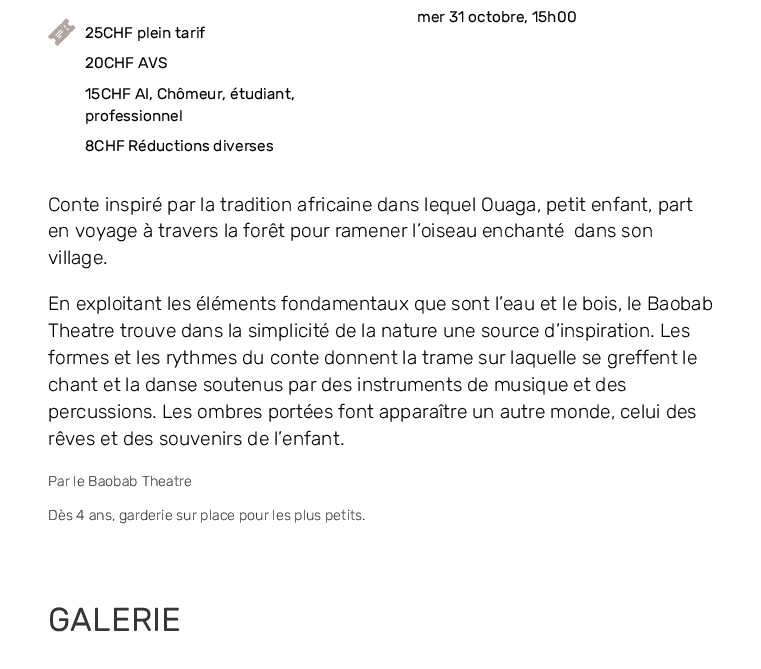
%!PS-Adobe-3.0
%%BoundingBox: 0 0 761 669
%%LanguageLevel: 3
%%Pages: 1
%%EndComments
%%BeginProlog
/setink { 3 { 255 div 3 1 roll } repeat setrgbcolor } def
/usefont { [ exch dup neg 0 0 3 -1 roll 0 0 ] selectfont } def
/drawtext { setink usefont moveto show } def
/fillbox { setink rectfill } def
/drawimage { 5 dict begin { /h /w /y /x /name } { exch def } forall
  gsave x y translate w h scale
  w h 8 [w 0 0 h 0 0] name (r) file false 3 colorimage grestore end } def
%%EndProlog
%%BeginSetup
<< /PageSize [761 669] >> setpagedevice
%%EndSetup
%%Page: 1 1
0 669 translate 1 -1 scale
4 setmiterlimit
0 0 761 669 255 255 255 fillbox
(mer 31 octobre, 15h00) 417 22 /Rubik-Regular 15.4 0 0 0 drawtext
(assets/img1.rgb) 48 18 28 28 drawimage
(25CHF plein tarif) 85 38 /Rubik-Regular 15.4 0 0 0 drawtext
(20CHF AVS) 85 68 /Rubik-Regular 15.4 0 0 0 drawtext
(15CHF AI, Chômeur, étudiant,) 85 99 /Rubik-Regular 15.4 0 0 0 drawtext
(professionnel) 85 121 /Rubik-Regular 15.4 0 0 0 drawtext
(8CHF Réductions diverses) 85 151 /Rubik-Regular 15.4 0 0 0 drawtext
(Conte inspiré par la tradition africaine dans lequel Ouaga, petit enfant, part) 48 211 /Rubik-Light 19.2 0 0 0 drawtext
(en voyage à travers la forêt pour ramener l’oiseau enchanté  dans son) 48 237 /Rubik-Light 19.2 0 0 0 drawtext
(village.) 48 264 /Rubik-Light 19.2 0 0 0 drawtext
(En exploitant les éléments fondamentaux que sont l’eau et le bois, le Baobab) 48 310 /Rubik-Light 19.2 0 0 0 drawtext
(Theatre trouve dans la simplicité de la nature une source d’inspiration. Les) 48 337 /Rubik-Light 19.2 0 0 0 drawtext
(formes et les rythmes du conte donnent la trame sur laquelle se greffent le) 48 364 /Rubik-Light 19.2 0 0 0 drawtext
(chant et la danse soutenus par des instruments de musique et des) 48 391 /Rubik-Light 19.2 0 0 0 drawtext
(percussions. Les ombres portées font apparaître un autre monde, celui des) 48 418 /Rubik-Light 19.2 0 0 0 drawtext
(rêves et des souvenirs de l’enfant.) 48 445 /Rubik-Light 19.2 0 0 0 drawtext
(Par le Baobab Theatre) 48 486 /Rubik-Light 14.4 54 54 54 drawtext
(Dès 4 ans, garderie sur place pour les plus petits.) 48 520 /Rubik-Light 14.4 54 54 54 drawtext
/Rubik-Bold 32 usefont
48 631 moveto 1 0 (GALERIE) ashow
showpage
%%EOF
